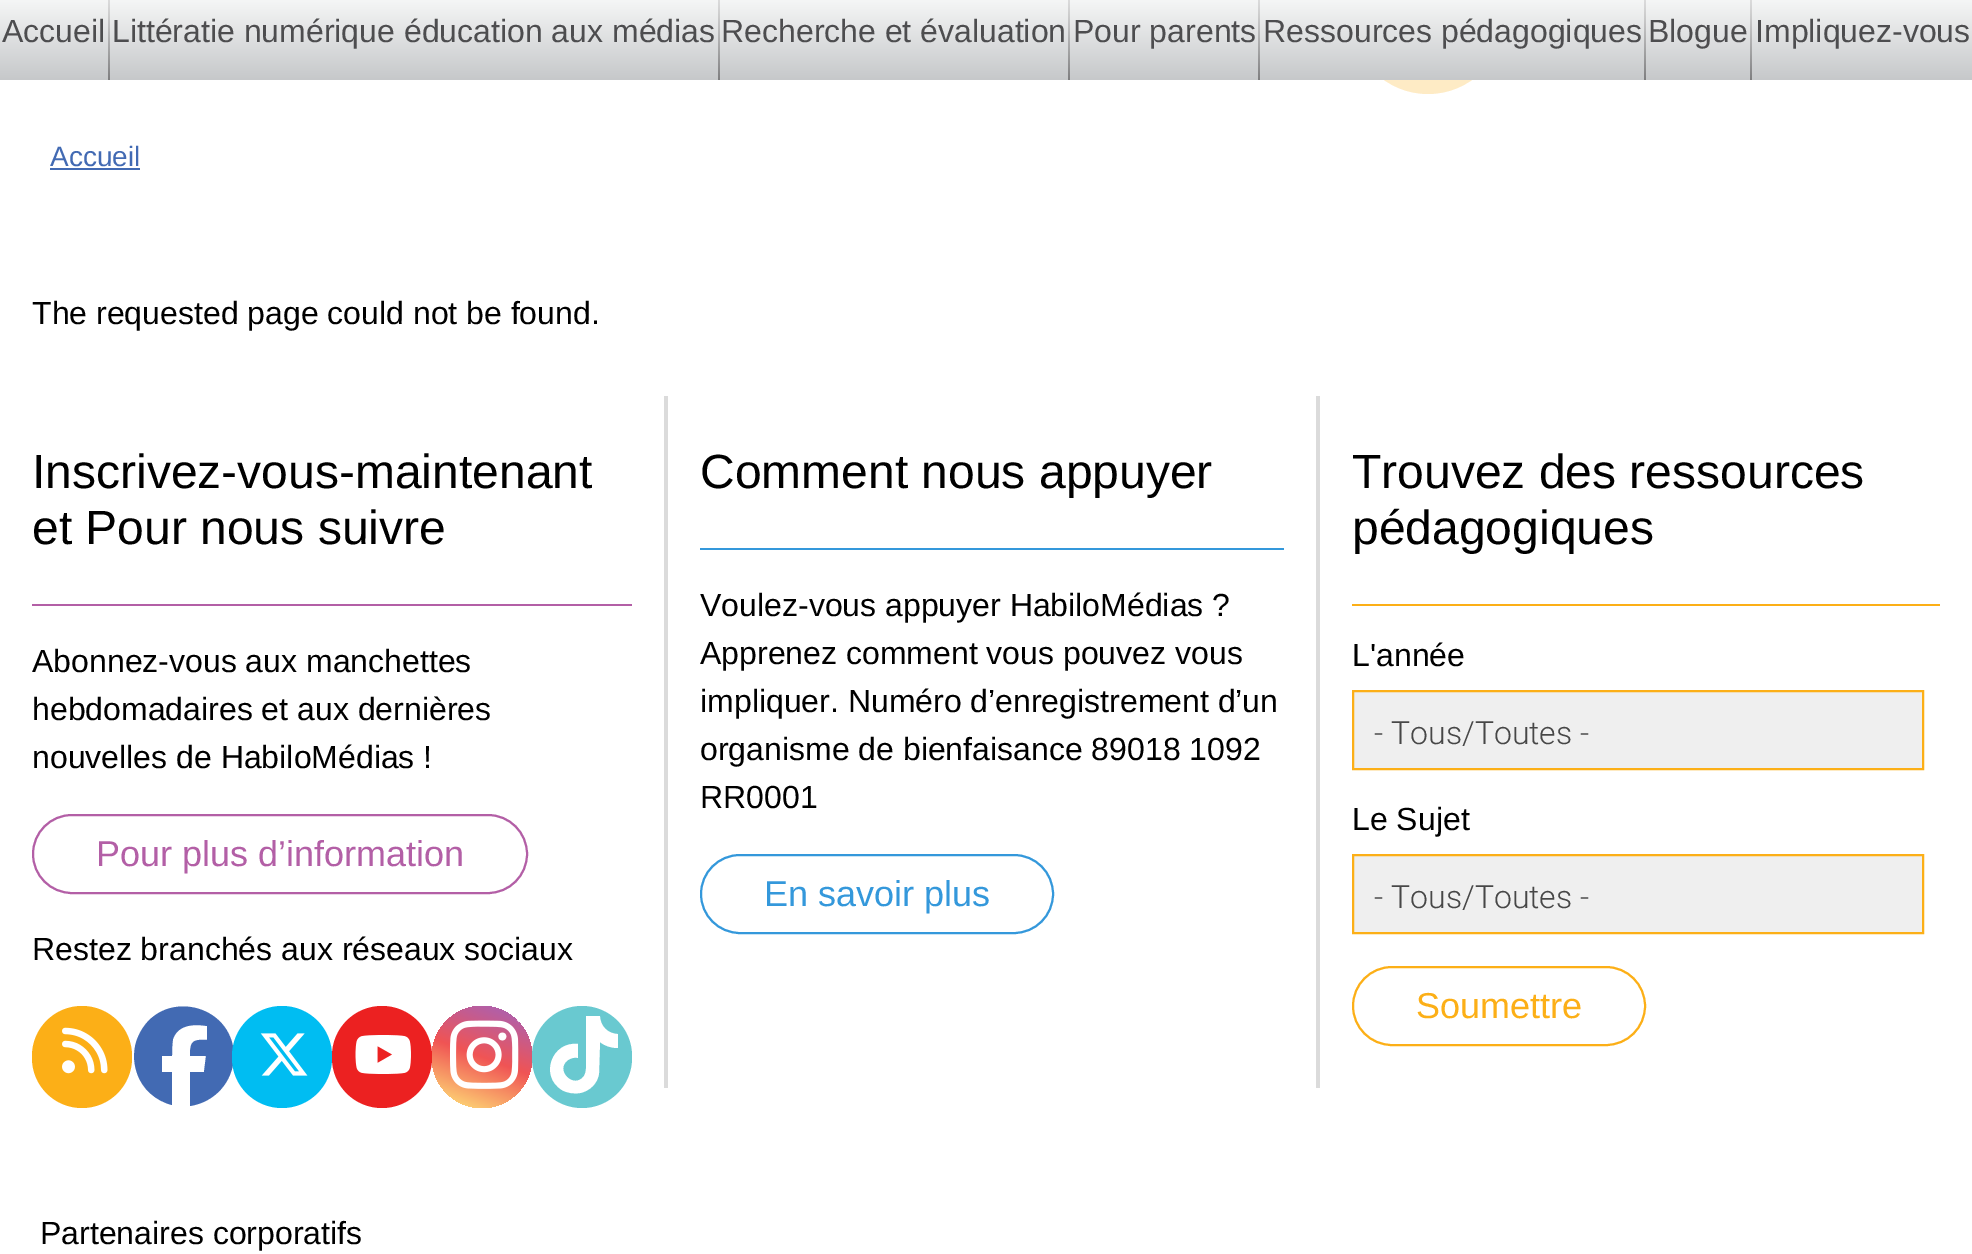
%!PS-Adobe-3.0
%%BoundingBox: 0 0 1972 1254
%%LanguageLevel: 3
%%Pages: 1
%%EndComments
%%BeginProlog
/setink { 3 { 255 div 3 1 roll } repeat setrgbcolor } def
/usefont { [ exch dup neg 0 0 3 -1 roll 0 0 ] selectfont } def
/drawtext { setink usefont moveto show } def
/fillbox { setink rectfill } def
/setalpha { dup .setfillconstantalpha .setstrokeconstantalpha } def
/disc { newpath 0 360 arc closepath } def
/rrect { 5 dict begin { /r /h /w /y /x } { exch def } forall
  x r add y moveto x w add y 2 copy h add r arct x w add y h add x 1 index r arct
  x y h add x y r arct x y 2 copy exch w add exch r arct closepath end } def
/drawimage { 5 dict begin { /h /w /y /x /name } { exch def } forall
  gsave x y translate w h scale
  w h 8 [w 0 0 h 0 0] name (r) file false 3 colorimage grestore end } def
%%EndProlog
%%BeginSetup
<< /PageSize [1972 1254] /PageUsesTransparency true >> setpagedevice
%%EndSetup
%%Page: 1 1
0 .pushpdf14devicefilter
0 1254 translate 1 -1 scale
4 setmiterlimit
0 0 1972 1254 255 255 255 fillbox
0.25 setalpha
252 175 23 setink
1428 18 76 disc fill
1 setalpha
gsave 0 0 moveto 108 0 lineto 108 80 lineto 0 80 lineto closepath clip newpath
<< /ShadingType 2 /ColorSpace /DeviceRGB /Coords [54 -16 54 80] /Extend [true true] /Function << /FunctionType 2 /Domain [0 1] /C0 [1 1 1] /C1 [0.776 0.784 0.792] /N 1 >> >> shfill grestore
(Accueil) 2 42 /LiberationSans-Regular 32 77 77 79 drawtext
gsave 110 0 moveto 718 0 lineto 718 80 lineto 110 80 lineto closepath clip newpath
<< /ShadingType 2 /ColorSpace /DeviceRGB /Coords [414 -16 414 80] /Extend [true true] /Function << /FunctionType 2 /Domain [0 1] /C0 [1 1 1] /C1 [0.776 0.784 0.792] /N 1 >> >> shfill grestore
(assets/img1.rgb) 108 0 2 80 drawimage
(Littératie numérique éducation aux médias) 112 42 /LiberationSans-Regular 32 77 77 79 drawtext
gsave 720 0 moveto 1068 0 lineto 1068 80 lineto 720 80 lineto closepath clip newpath
<< /ShadingType 2 /ColorSpace /DeviceRGB /Coords [894 -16 894 80] /Extend [true true] /Function << /FunctionType 2 /Domain [0 1] /C0 [1 1 1] /C1 [0.776 0.784 0.792] /N 1 >> >> shfill grestore
(assets/img2.rgb) 718 0 2 80 drawimage
(Recherche et évaluation) 721 42 /LiberationSans-Regular 32 77 77 79 drawtext
gsave 1070 0 moveto 1258 0 lineto 1258 80 lineto 1070 80 lineto closepath clip newpath
<< /ShadingType 2 /ColorSpace /DeviceRGB /Coords [1164 -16 1164 80] /Extend [true true] /Function << /FunctionType 2 /Domain [0 1] /C0 [1 1 1] /C1 [0.776 0.784 0.792] /N 1 >> >> shfill grestore
(assets/img1.rgb) 1068 0 2 80 drawimage
(Pour parents) 1073 42 /LiberationSans-Regular 32 77 77 79 drawtext
gsave 1260 0 moveto 1644 0 lineto 1644 80 lineto 1260 80 lineto closepath clip newpath
<< /ShadingType 2 /ColorSpace /DeviceRGB /Coords [1452 -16 1452 80] /Extend [true true] /Function << /FunctionType 2 /Domain [0 1] /C0 [1 1 1] /C1 [0.776 0.784 0.792] /N 1 >> >> shfill grestore
(assets/img2.rgb) 1258 0 2 80 drawimage
(Ressources pédagogiques) 1263 42 /LiberationSans-Regular 32 77 77 79 drawtext
gsave 1646 0 moveto 1750 0 lineto 1750 80 lineto 1646 80 lineto closepath clip newpath
<< /ShadingType 2 /ColorSpace /DeviceRGB /Coords [1698 -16 1698 80] /Extend [true true] /Function << /FunctionType 2 /Domain [0 1] /C0 [1 1 1] /C1 [0.776 0.784 0.792] /N 1 >> >> shfill grestore
(assets/img3.rgb) 1644 0 2 80 drawimage
(Blogue) 1648 42 /LiberationSans-Regular 32 77 77 79 drawtext
gsave 1752 0 moveto 1972 0 lineto 1972 80 lineto 1752 80 lineto closepath clip newpath
<< /ShadingType 2 /ColorSpace /DeviceRGB /Coords [1862 -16 1862 80] /Extend [true true] /Function << /FunctionType 2 /Domain [0 1] /C0 [1 1 1] /C1 [0.776 0.784 0.792] /N 1 >> >> shfill grestore
(assets/img2.rgb) 1750 0 2 80 drawimage
(Impliquez-vous) 1755 42 /LiberationSans-Regular 32 77 77 79 drawtext
(Accueil) 50 166 /LiberationSans-Regular 28 66 106 179 drawtext
50 168 90 2 66 106 179 fillbox
(The requested page could not be found.) 32 324 /LiberationSans-Regular 32 0 0 0 drawtext
664 396 4 692 219 219 219 fillbox
32 604 600 2 179 95 166 fillbox
(Inscrivez-vous-maintenant) 32 488 /LiberationSans-Regular 48 0 0 0 drawtext
(et Pour nous suivre) 32 544 /LiberationSans-Regular 48 0 0 0 drawtext
(Abonnez-vous aux manchettes) 32 672 /LiberationSans-Regular 32 0 0 0 drawtext
(hebdomadaires et aux dernières) 32 720 /LiberationSans-Regular 32 0 0 0 drawtext
(nouvelles de HabiloMédias !) 32 768 /LiberationSans-Regular 32 0 0 0 drawtext
179 95 166 setink
2 setlinewidth
33 815 494 78 39 rrect stroke
(Pour plus d’information) 96 866 /LiberationSans-Regular 36 179 95 166 drawtext
(Restez branchés aux réseaux sociaux) 32 960 /LiberationSans-Regular 32 0 0 0 drawtext
252 175 23 setink
32 1006 100 102 50 rrect fill
(assets/img4.rgb) 62 1027 46 47 drawimage
66 106 179 setink
234 1056 moveto 233 1002 159 987 138 1037 curveto 133 1048 133 1062 137 1073 curveto 142 1089 156 1101 172 1105 curveto 172 1072 lineto 162 1072 lineto 162 1056 lineto 172 1056 lineto 172 1051 172 1045 173 1039 curveto 178 1024 195 1024 207 1026 curveto 207 1040 lineto 192 1039 190 1042 190 1056 curveto 206 1056 lineto 204 1072 lineto 190 1072 lineto 190 1106 lineto 215 1102 233 1082 234 1056 curveto closepath fill
0 189 242 setink
232 1006 100 102 50 rrect fill
(assets/img5.rgb) 260 1033 48 43 drawimage
236 33 33 setink
332 1006 100 102 50 rrect fill
(assets/img6.rgb) 355 1035 56 39 drawimage
gsave 432 1006 100 102 50 rrect clip newpath
<< /ShadingType 2 /ColorSpace /DeviceRGB /Coords [505 996 459 1118] /Extend [true true] /Function << /FunctionType 3 /Domain [0 1] /Functions [<< /FunctionType 2 /Domain [0 1] /C0 [0.702 0.373 0.651] /C1 [0.702 0.373 0.651] /N 1 >> << /FunctionType 2 /Domain [0 1] /C0 [0.702 0.373 0.651] /C1 [0.941 0.329 0.329] /N 1 >> << /FunctionType 2 /Domain [0 1] /C0 [0.941 0.329 0.329] /C1 [0.992 0.812 0.455] /N 1 >> << /FunctionType 2 /Domain [0 1] /C0 [0.992 0.812 0.455] /C1 [0.992 0.812 0.455] /N 1 >>] /Bounds [0.12 0.5 0.91] /Encode [0 1 0 1 0 1 0 1] >> >> shfill grestore
(assets/img7.rgb) 450 1020 69 69 drawimage
105 201 208 setink
532 1006 100 102 50 rrect fill
255 255 255 setink
618 1048 moveto 611 1048 605 1046 600 1042 curveto 599 1073 lineto 598 1083 590 1091 580 1093 curveto 574 1094 567 1093 562 1090 curveto 539 1076 552 1041 578 1044 curveto 578 1058 lineto 575 1057 571 1058 568 1060 curveto 554 1070 574 1090 584 1076 curveto 587 1071 586 1065 586 1060 curveto 586 1016 lineto 600 1016 lineto 600 1026 608 1034 618 1034 curveto closepath fill
1316 396 4 692 219 219 219 fillbox
700 548 584 2 52 152 219 fillbox
(Comment nous appuyer) 700 488 /LiberationSans-Regular 48 0 0 0 drawtext
(Voulez-vous appuyer HabiloMédias ?) 700 616 /LiberationSans-Regular 32 0 0 0 drawtext
(Apprenez comment vous pouvez vous) 700 664 /LiberationSans-Regular 32 0 0 0 drawtext
(impliquer. Numéro d’enregistrement d’un) 700 712 /LiberationSans-Regular 32 0 0 0 drawtext
(organisme de bienfaisance 89018 1092) 700 760 /LiberationSans-Regular 32 0 0 0 drawtext
(RR0001) 700 808 /LiberationSans-Regular 32 0 0 0 drawtext
52 152 219 setink
701 855 352 78 39 rrect stroke
(En savoir plus) 764 906 /LiberationSans-Regular 36 52 152 219 drawtext
1352 604 588 2 252 175 23 fillbox
(Trouvez des ressources) 1352 488 /LiberationSans-Regular 48 0 0 0 drawtext
(pédagogiques) 1352 544 /LiberationSans-Regular 48 0 0 0 drawtext
(L'année) 1352 666 /LiberationSans-Regular 32 0 0 0 drawtext
239 239 239 setink
1353 691 moveto 1923 691 lineto 1923 769 lineto 1353 769 lineto closepath gsave fill grestore
252 175 23 setink
stroke
(- Tous/Toutes -) 1374 744 /Roboto-Light 32 71 71 71 drawtext
(Le Sujet) 1352 830 /LiberationSans-Regular 32 0 0 0 drawtext
239 239 239 setink
1353 855 moveto 1923 855 lineto 1923 933 lineto 1353 933 lineto closepath gsave fill grestore
252 175 23 setink
stroke
(- Tous/Toutes -) 1374 908 /Roboto-Light 32 71 71 71 drawtext
252 175 23 setink
1353 967 292 78 39 rrect stroke
(Soumettre) 1416 1018 /LiberationSans-Regular 36 252 175 23 drawtext
(Partenaires corporatifs) 40 1244 /LiberationSans-Regular 32 0 0 0 drawtext
.poppdf14devicefilter showpage
%%EOF
